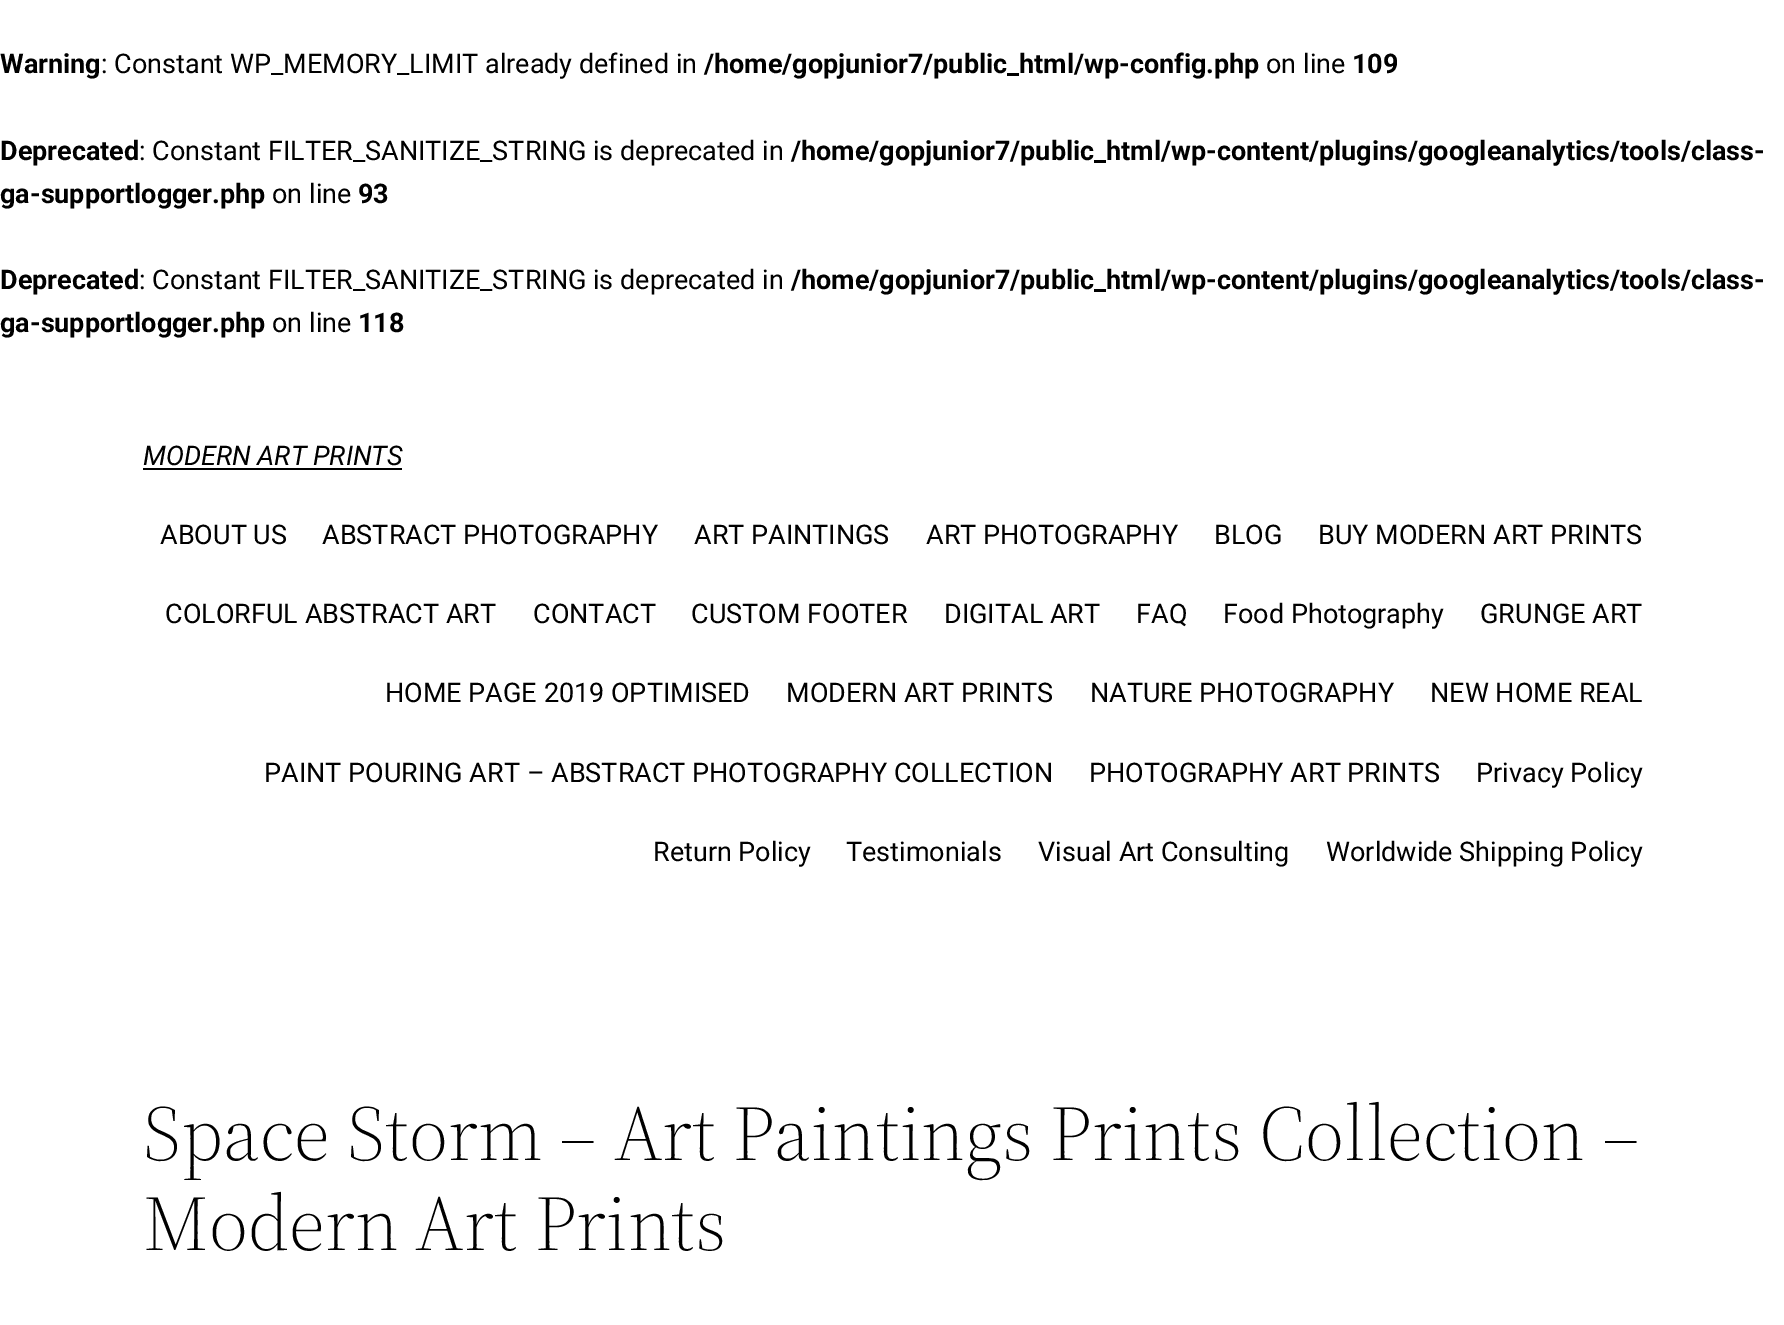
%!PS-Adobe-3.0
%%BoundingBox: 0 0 1784 1325
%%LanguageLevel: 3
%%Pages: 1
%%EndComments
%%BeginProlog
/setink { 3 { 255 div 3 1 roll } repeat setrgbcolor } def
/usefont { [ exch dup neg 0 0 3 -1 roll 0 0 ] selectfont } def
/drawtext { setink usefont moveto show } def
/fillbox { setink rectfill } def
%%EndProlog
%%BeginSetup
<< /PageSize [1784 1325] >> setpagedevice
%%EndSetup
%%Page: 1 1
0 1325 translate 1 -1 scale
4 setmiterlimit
0 0 1784 1325 255 255 255 fillbox
(Warning) 0 73 /Roboto-Bold 27 0 0 0 drawtext
(: Constant WP_MEMORY_LIMIT already defined in) 101 73 /Roboto-Regular 27 0 0 0 drawtext
(/home/gopjunior7/public_html/wp-config.php) 704 73 /Roboto-Bold 27 0 0 0 drawtext
(on line) 1266 73 /Roboto-Regular 27 0 0 0 drawtext
(109) 1352 73 /Roboto-Bold 27 0 0 0 drawtext
(Deprecated) 0 160 /Roboto-Bold 27 0 0 0 drawtext
(: Constant FILTER_SANITIZE_STRING is deprecated in) 139 160 /Roboto-Regular 27 0 0 0 drawtext
(/home/gopjunior7/public_html/wp-content/plugins/googleanalytics/tools/class-) 791 160 /Roboto-Bold 27 0 0 0 drawtext
(ga-supportlogger.php) 0 203 /Roboto-Bold 27 0 0 0 drawtext
(on line) 272 203 /Roboto-Regular 27 0 0 0 drawtext
(93) 358 203 /Roboto-Bold 27 0 0 0 drawtext
(Deprecated) 0 289 /Roboto-Bold 27 0 0 0 drawtext
(: Constant FILTER_SANITIZE_STRING is deprecated in) 139 289 /Roboto-Regular 27 0 0 0 drawtext
(/home/gopjunior7/public_html/wp-content/plugins/googleanalytics/tools/class-) 791 289 /Roboto-Bold 27 0 0 0 drawtext
(ga-supportlogger.php) 0 332 /Roboto-Bold 27 0 0 0 drawtext
(on line) 272 332 /Roboto-Regular 27 0 0 0 drawtext
(118) 358 332 /Roboto-Bold 27 0 0 0 drawtext
(MODERN ART PRINTS) 143 465 /Roboto-Italic 27 0 0 0 drawtext
143 468 259 2 0 0 0 fillbox
(ABOUT US) 160 544 /Roboto-Regular 27 0 0 0 drawtext
(ABSTRACT PHOTOGRAPHY) 322 544 /Roboto-Regular 27 0 0 0 drawtext
(ART PAINTINGS) 694 544 /Roboto-Regular 27 0 0 0 drawtext
(ART PHOTOGRAPHY) 926 544 /Roboto-Regular 27 0 0 0 drawtext
(BLOG) 1214 544 /Roboto-Regular 27 0 0 0 drawtext
(BUY MODERN ART PRINTS) 1318 544 /Roboto-Regular 27 0 0 0 drawtext
(COLORFUL ABSTRACT ART) 165 623 /Roboto-Regular 27 0 0 0 drawtext
(CONTACT) 533 623 /Roboto-Regular 27 0 0 0 drawtext
(CUSTOM FOOTER) 691 623 /Roboto-Regular 27 0 0 0 drawtext
(DIGITAL ART) 944 623 /Roboto-Regular 27 0 0 0 drawtext
(FAQ) 1136 623 /Roboto-Regular 27 0 0 0 drawtext
(Food Photography) 1223 623 /Roboto-Regular 27 0 0 0 drawtext
(GRUNGE ART) 1480 623 /Roboto-Regular 27 0 0 0 drawtext
(HOME PAGE 2019 OPTIMISED) 385 702 /Roboto-Regular 27 0 0 0 drawtext
(MODERN ART PRINTS) 786 702 /Roboto-Regular 27 0 0 0 drawtext
(NATURE PHOTOGRAPHY) 1090 702 /Roboto-Regular 27 0 0 0 drawtext
(NEW HOME REAL) 1430 702 /Roboto-Regular 27 0 0 0 drawtext
(PAINT POURING ART – ABSTRACT PHOTOGRAPHY COLLECTION) 264 782 /Roboto-Regular 27 0 0 0 drawtext
(PHOTOGRAPHY ART PRINTS) 1089 782 /Roboto-Regular 27 0 0 0 drawtext
(Privacy Policy) 1476 782 /Roboto-Regular 27 0 0 0 drawtext
(Return Policy) 653 861 /Roboto-Regular 27 0 0 0 drawtext
(Testimonials) 846 861 /Roboto-Regular 27 0 0 0 drawtext
(Visual Art Consulting) 1038 861 /Roboto-Regular 27 0 0 0 drawtext
(Worldwide Shipping Policy) 1326 861 /Roboto-Regular 27 0 0 0 drawtext
(Space Storm – Art Paintings Prints Collection –) 143 1160 /SourceSerif4-Light 78 0 0 0 drawtext
(Modern Art Prints) 143 1250 /SourceSerif4-Light 78 0 0 0 drawtext
showpage
%%EOF
